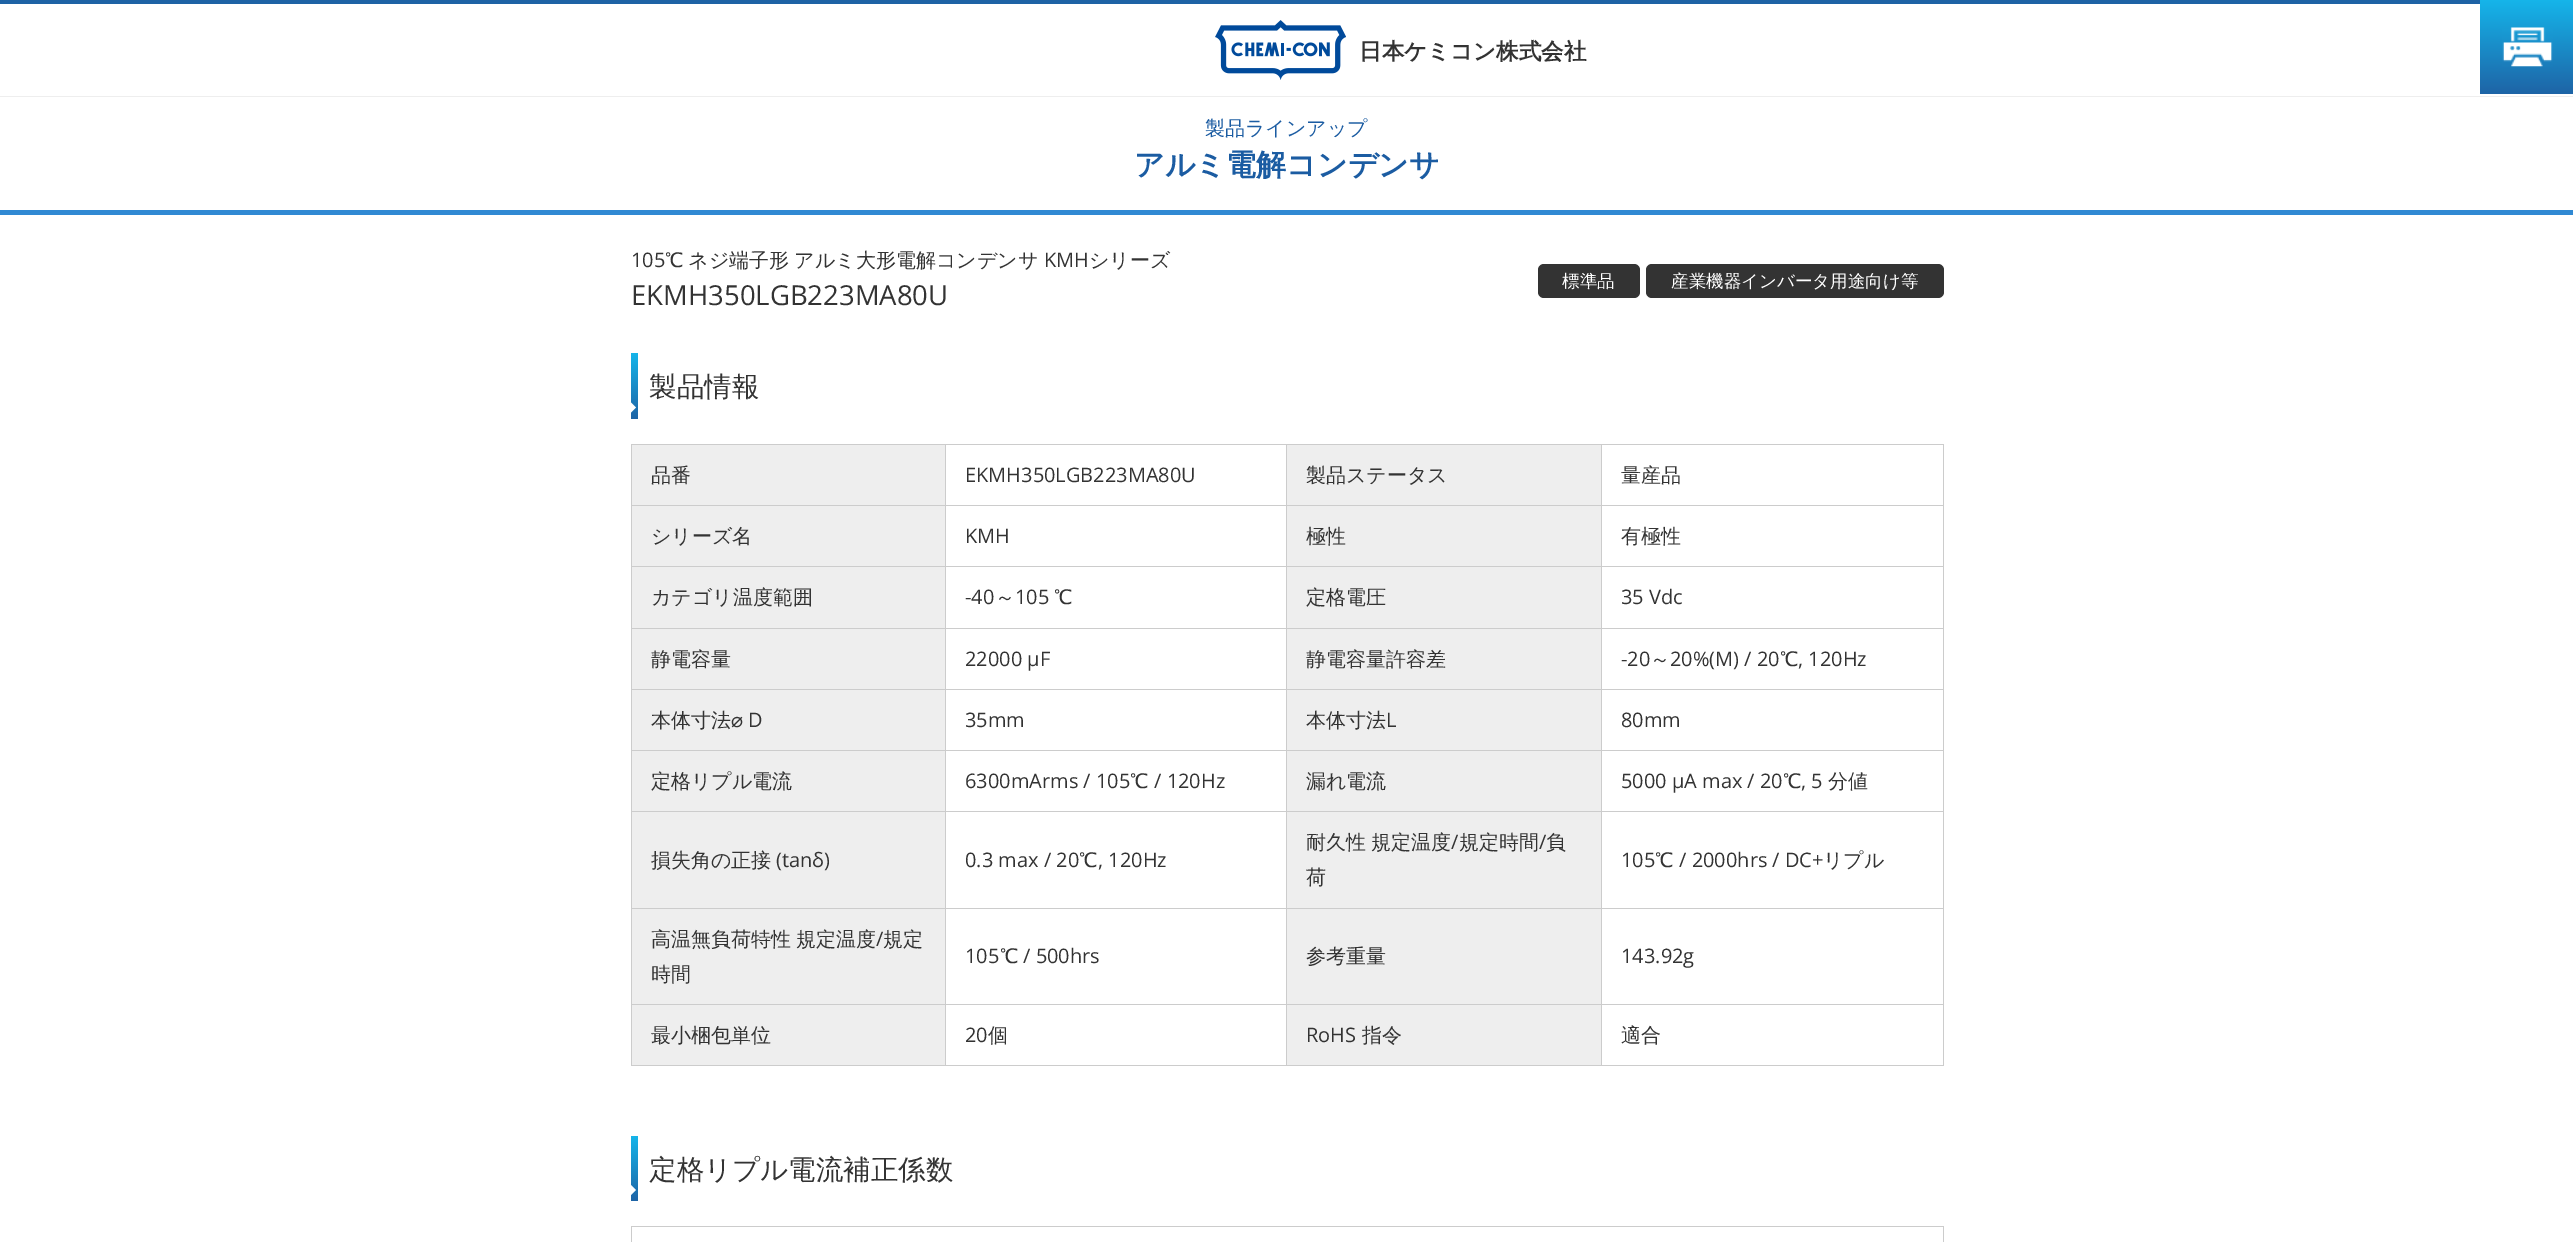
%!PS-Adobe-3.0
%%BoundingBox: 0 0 2573 1242
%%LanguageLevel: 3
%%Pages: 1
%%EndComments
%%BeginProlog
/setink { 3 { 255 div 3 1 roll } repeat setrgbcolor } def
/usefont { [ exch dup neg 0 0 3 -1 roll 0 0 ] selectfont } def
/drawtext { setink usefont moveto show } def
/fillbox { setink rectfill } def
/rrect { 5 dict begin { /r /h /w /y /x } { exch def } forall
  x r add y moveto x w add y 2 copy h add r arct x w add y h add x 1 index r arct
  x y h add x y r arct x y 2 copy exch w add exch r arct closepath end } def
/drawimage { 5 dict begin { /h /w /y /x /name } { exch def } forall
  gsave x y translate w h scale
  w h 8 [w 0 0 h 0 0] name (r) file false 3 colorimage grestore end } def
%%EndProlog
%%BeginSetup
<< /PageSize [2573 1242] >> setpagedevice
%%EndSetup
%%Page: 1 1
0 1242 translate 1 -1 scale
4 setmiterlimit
0 0 2573 1242 255 255 255 fillbox
0 0 2480 4 30 99 165 fillbox
0 96 2573 1 238 238 238 fillbox
(assets/img1.rgb) 1215 20 131 60 drawimage
(日本ケミコン株式会社) 1359 59 /WenQuanYiZenHei-Bold 22.5 51 51 51 drawtext
gsave 2480 0 moveto 2573 0 lineto 2573 94 lineto 2480 94 lineto closepath clip newpath
<< /ShadingType 2 /ColorSpace /DeviceRGB /Coords [2527 0 2527 94] /Extend [true true] /Function << /FunctionType 2 /Domain [0 1] /C0 [0.082 0.71 0.918] /C1 [0.118 0.392 0.651] /N 1 >> >> shfill grestore
(assets/img2.rgb) 2502 27 51 40 drawimage
0 210 2573 5 48 137 211 fillbox
(製品ラインアップ) 1205 135 /WenQuanYiZenHei-Medium 20 27 92 162 drawtext
(アルミ電解コンデンサ) 1134 175 /WenQuanYiZenHei-Bold 30 27 92 162 drawtext
(105) 631 267 /OpenSans-Regular 20 51 51 51 drawtext
/WenQuanYiZenHei-Medium 20 usefont
665 267 moveto -1 0 32 (℃ ネジ端子形 アルミ大形電解コンデンサ) widthshow
(KMH) 1044 267 /OpenSans-Regular 20 51 51 51 drawtext
(シリーズ) 1089 267 /WenQuanYiZenHei-Medium 20 51 51 51 drawtext
(EKMH350LGB223MA80U) 631 305 /OpenSans-Regular 27.5 51 51 51 drawtext
1538 264 102 34 6 rrect fill
(標準品) 1562 287 /WenQuanYiZenHei-Medium 17.5 255 255 255 drawtext
51 51 51 setink
1646 264 298 34 6 rrect fill
(産業機器インバータ用途向け等) 1671 287 /WenQuanYiZenHei-Medium 17.5 255 255 255 drawtext
gsave 631 353 moveto 638 353 lineto 638 419 lineto 631 419 lineto closepath clip newpath
<< /ShadingType 2 /ColorSpace /DeviceRGB /Coords [634 353 634 419] /Extend [true true] /Function << /FunctionType 2 /Domain [0 1] /C0 [0.082 0.71 0.918] /C1 [0.118 0.392 0.651] /N 1 >> >> shfill grestore
(製品情報) 649 396 /WenQuanYiZenHei-Medium 27.5 51 51 51 drawtext
255 255 255 setink
631 412.5 moveto 631 402.5 lineto 636 407.5 lineto closepath fill
631 444 1313 1 204 204 204 fillbox
1943 444 1 622 204 204 204 fillbox
631 1065 1313 1 204 204 204 fillbox
631 444 1 622 204 204 204 fillbox
632 445 313 60 238 238 238 fillbox
(品番) 651 482 /WenQuanYiZenHei-Medium 20 51 51 51 drawtext
1601 505 343 1 204 204 204 fillbox
1601 566 343 1 204 204 204 fillbox
1601 628 343 1 204 204 204 fillbox
1601 689 343 1 204 204 204 fillbox
1601 750 343 1 204 204 204 fillbox
1601 811 343 1 204 204 204 fillbox
1601 908 343 1 204 204 204 fillbox
1601 1004 343 1 204 204 204 fillbox
1601 1004 1 62 204 204 204 fillbox
1286 1004 317 1 204 204 204 fillbox
1601 908 1 97 204 204 204 fillbox
1286 908 317 1 204 204 204 fillbox
1601 811 1 98 204 204 204 fillbox
1286 811 317 1 204 204 204 fillbox
1601 750 1 63 204 204 204 fillbox
1286 750 317 1 204 204 204 fillbox
1601 689 1 62 204 204 204 fillbox
1286 689 317 1 204 204 204 fillbox
1601 628 1 62 204 204 204 fillbox
1286 628 317 1 204 204 204 fillbox
1601 566 1 63 204 204 204 fillbox
1286 566 317 1 204 204 204 fillbox
1601 505 1 63 204 204 204 fillbox
1286 505 317 1 204 204 204 fillbox
1286 1004 1 62 204 204 204 fillbox
945 1004 343 1 204 204 204 fillbox
1286 908 1 97 204 204 204 fillbox
945 908 343 1 204 204 204 fillbox
1286 811 1 98 204 204 204 fillbox
945 811 343 1 204 204 204 fillbox
1286 750 1 63 204 204 204 fillbox
945 750 343 1 204 204 204 fillbox
1286 689 1 62 204 204 204 fillbox
945 689 343 1 204 204 204 fillbox
1286 628 1 62 204 204 204 fillbox
945 628 343 1 204 204 204 fillbox
1286 566 1 63 204 204 204 fillbox
945 566 343 1 204 204 204 fillbox
1286 505 1 63 204 204 204 fillbox
945 505 343 1 204 204 204 fillbox
945 1004 1 62 204 204 204 fillbox
631 1004 315 1 204 204 204 fillbox
945 908 1 97 204 204 204 fillbox
631 908 315 1 204 204 204 fillbox
945 811 1 98 204 204 204 fillbox
631 811 315 1 204 204 204 fillbox
945 750 1 63 204 204 204 fillbox
631 750 315 1 204 204 204 fillbox
945 689 1 62 204 204 204 fillbox
631 689 315 1 204 204 204 fillbox
945 628 1 62 204 204 204 fillbox
631 628 315 1 204 204 204 fillbox
945 566 1 63 204 204 204 fillbox
631 566 315 1 204 204 204 fillbox
945 505 1 63 204 204 204 fillbox
631 505 315 1 204 204 204 fillbox
945 444 1 62 204 204 204 fillbox
(EKMH350LGB223MA80U) 965 482 /OpenSans-Regular 20 51 51 51 drawtext
1287 445 314 60 238 238 238 fillbox
1286 444 1 62 204 204 204 fillbox
(製品ステータス) 1306 482 /WenQuanYiZenHei-Medium 20 51 51 51 drawtext
1601 444 1 62 204 204 204 fillbox
(量産品) 1621 482 /WenQuanYiZenHei-Medium 20 51 51 51 drawtext
632 506 313 60 238 238 238 fillbox
(シリーズ名) 651 543 /WenQuanYiZenHei-Medium 20 51 51 51 drawtext
(KMH) 965 543 /OpenSans-Regular 20 51 51 51 drawtext
1287 506 314 60 238 238 238 fillbox
(極性) 1306 543 /WenQuanYiZenHei-Medium 20 51 51 51 drawtext
(有極性) 1621 543 /WenQuanYiZenHei-Medium 20 51 51 51 drawtext
632 567 313 61 238 238 238 fillbox
(カテゴリ温度範囲) 651 604 /WenQuanYiZenHei-Medium 20 51 51 51 drawtext
(-40) 965 604 /OpenSans-Regular 20 51 51 51 drawtext
(～) 995 604 /WenQuanYiZenHei-Medium 20 51 51 51 drawtext
(105) 1015 604 /OpenSans-Regular 20 51 51 51 drawtext
(℃) 1054 604 /WenQuanYiZenHei-Medium 20 51 51 51 drawtext
1287 567 314 61 238 238 238 fillbox
(定格電圧) 1306 604 /WenQuanYiZenHei-Medium 20 51 51 51 drawtext
(35 Vdc) 1621 604 /OpenSans-Regular 20 51 51 51 drawtext
632 629 313 60 238 238 238 fillbox
(静電容量) 651 666 /WenQuanYiZenHei-Medium 20 51 51 51 drawtext
(22000 µF) 965 666 /OpenSans-Regular 20 51 51 51 drawtext
1287 629 314 60 238 238 238 fillbox
(静電容量許容差) 1306 666 /WenQuanYiZenHei-Medium 20 51 51 51 drawtext
(-20) 1621 666 /OpenSans-Regular 20 51 51 51 drawtext
(～) 1650 666 /WenQuanYiZenHei-Medium 20 51 51 51 drawtext
(20%\(M\) / 20) 1670 666 /OpenSans-Regular 20 51 51 51 drawtext
(℃) 1780 666 /WenQuanYiZenHei-Medium 20 51 51 51 drawtext
(, 120Hz) 1798 666 /OpenSans-Regular 20 51 51 51 drawtext
632 690 313 60 238 238 238 fillbox
(本体寸法) 651 727 /WenQuanYiZenHei-Medium 20 51 51 51 drawtext
(⌀) 731 727 /DejaVuSans-Regular 20 51 51 51 drawtext
(D) 748 727 /OpenSans-Regular 20 51 51 51 drawtext
(35mm) 965 727 /OpenSans-Regular 20 51 51 51 drawtext
1287 690 314 60 238 238 238 fillbox
(本体寸法) 1306 727 /WenQuanYiZenHei-Medium 20 51 51 51 drawtext
(L) 1386 727 /OpenSans-Regular 20 51 51 51 drawtext
(80mm) 1621 727 /OpenSans-Regular 20 51 51 51 drawtext
632 751 313 60 238 238 238 fillbox
(定格リプル電流) 651 788 /WenQuanYiZenHei-Medium 20 51 51 51 drawtext
(6300mArms / 105) 965 788 /OpenSans-Regular 20 51 51 51 drawtext
(℃) 1130 788 /WenQuanYiZenHei-Medium 20 51 51 51 drawtext
(/ 120Hz) 1154 788 /OpenSans-Regular 20 51 51 51 drawtext
1287 751 314 60 238 238 238 fillbox
(漏れ電流) 1306 788 /WenQuanYiZenHei-Medium 20 51 51 51 drawtext
(5000 μA max / 20) 1621 788 /OpenSans-Regular 20 51 51 51 drawtext
(℃) 1783 788 /WenQuanYiZenHei-Medium 20 51 51 51 drawtext
(, 5) 1801 788 /OpenSans-Regular 20 51 51 51 drawtext
(分値) 1828 788 /WenQuanYiZenHei-Medium 20 51 51 51 drawtext
632 812 313 96 238 238 238 fillbox
(損失角の正接) 651 867 /WenQuanYiZenHei-Medium 20 51 51 51 drawtext
(\(tanδ\)) 776 867 /OpenSans-Regular 20 51 51 51 drawtext
(0.3 max / 20) 965 867 /OpenSans-Regular 20 51 51 51 drawtext
(℃) 1079 867 /WenQuanYiZenHei-Medium 20 51 51 51 drawtext
(, 120Hz) 1098 867 /OpenSans-Regular 20 51 51 51 drawtext
1287 812 314 96 238 238 238 fillbox
/WenQuanYiZenHei-Medium 20 usefont
51 51 51 setink
1306 849 moveto -1 0 32 (耐久性 規定温度) widthshow
(/) 1451 849 /OpenSans-Regular 20 51 51 51 drawtext
(規定時間) 1459 849 /WenQuanYiZenHei-Medium 20 51 51 51 drawtext
(/) 1539 849 /OpenSans-Regular 20 51 51 51 drawtext
(負) 1546 849 /WenQuanYiZenHei-Medium 20 51 51 51 drawtext
(荷) 1306 884 /WenQuanYiZenHei-Medium 20 51 51 51 drawtext
(105) 1621 867 /OpenSans-Regular 20 51 51 51 drawtext
(℃) 1655 867 /WenQuanYiZenHei-Medium 20 51 51 51 drawtext
(/ 2000hrs / DC+) 1679 867 /OpenSans-Regular 20 51 51 51 drawtext
(リプル) 1823 867 /WenQuanYiZenHei-Medium 20 51 51 51 drawtext
632 909 313 95 238 238 238 fillbox
51 51 51 setink
651 946 moveto -1 0 32 (高温無負荷特性 規定温度) widthshow
(/) 876 946 /OpenSans-Regular 20 51 51 51 drawtext
(規定) 883 946 /WenQuanYiZenHei-Medium 20 51 51 51 drawtext
(時間) 651 981 /WenQuanYiZenHei-Medium 20 51 51 51 drawtext
(105) 965 963 /OpenSans-Regular 20 51 51 51 drawtext
(℃) 1000 963 /WenQuanYiZenHei-Medium 20 51 51 51 drawtext
(/ 500hrs) 1023 963 /OpenSans-Regular 20 51 51 51 drawtext
1287 909 314 95 238 238 238 fillbox
(参考重量) 1306 963 /WenQuanYiZenHei-Medium 20 51 51 51 drawtext
(143.92g) 1621 963 /OpenSans-Regular 20 51 51 51 drawtext
632 1005 313 60 238 238 238 fillbox
(最小梱包単位) 651 1042 /WenQuanYiZenHei-Medium 20 51 51 51 drawtext
(20) 965 1042 /OpenSans-Regular 20 51 51 51 drawtext
(個) 988 1042 /WenQuanYiZenHei-Medium 20 51 51 51 drawtext
1287 1005 314 60 238 238 238 fillbox
(RoHS) 1306 1042 /OpenSans-Regular 20 51 51 51 drawtext
(指令) 1362 1042 /WenQuanYiZenHei-Medium 20 51 51 51 drawtext
(適合) 1621 1042 /WenQuanYiZenHei-Medium 20 51 51 51 drawtext
gsave 631 1136 moveto 638 1136 lineto 638 1201 lineto 631 1201 lineto closepath clip newpath
<< /ShadingType 2 /ColorSpace /DeviceRGB /Coords [634 1136 634 1201] /Extend [true true] /Function << /FunctionType 2 /Domain [0 1] /C0 [0.082 0.71 0.918] /C1 [0.118 0.392 0.651] /N 1 >> >> shfill grestore
(定格リプル電流補正係数) 649 1179 /WenQuanYiZenHei-Medium 27.5 51 51 51 drawtext
255 255 255 setink
631 1195 moveto 631 1185 lineto 636 1190 lineto closepath fill
631 1226 1313 1 204 204 204 fillbox
1943 1226 1 16 204 204 204 fillbox
631 1226 1 16 204 204 204 fillbox
showpage
%%EOF
